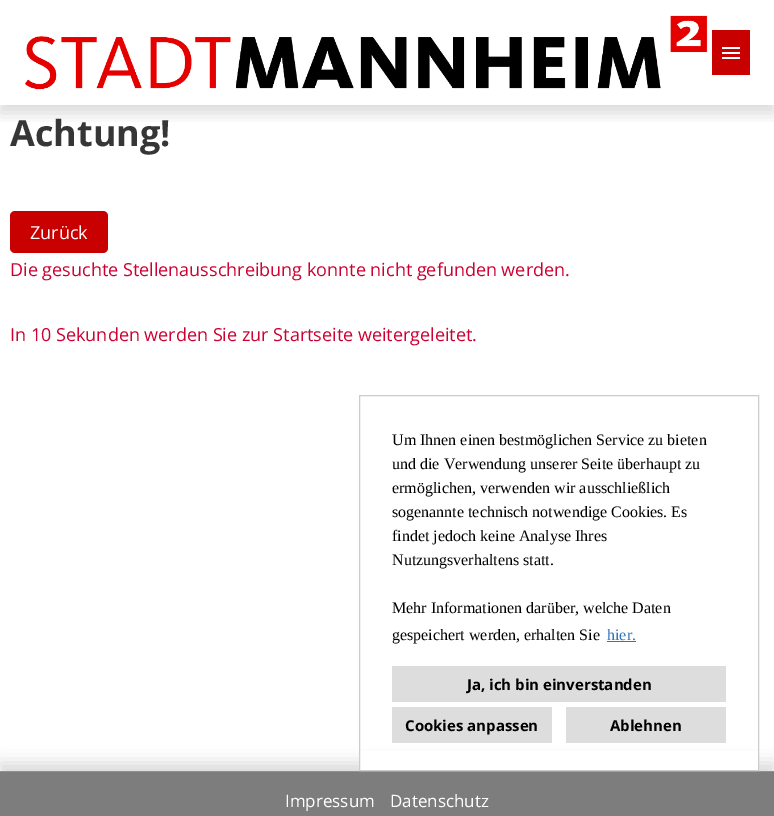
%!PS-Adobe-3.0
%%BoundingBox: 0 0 774 816
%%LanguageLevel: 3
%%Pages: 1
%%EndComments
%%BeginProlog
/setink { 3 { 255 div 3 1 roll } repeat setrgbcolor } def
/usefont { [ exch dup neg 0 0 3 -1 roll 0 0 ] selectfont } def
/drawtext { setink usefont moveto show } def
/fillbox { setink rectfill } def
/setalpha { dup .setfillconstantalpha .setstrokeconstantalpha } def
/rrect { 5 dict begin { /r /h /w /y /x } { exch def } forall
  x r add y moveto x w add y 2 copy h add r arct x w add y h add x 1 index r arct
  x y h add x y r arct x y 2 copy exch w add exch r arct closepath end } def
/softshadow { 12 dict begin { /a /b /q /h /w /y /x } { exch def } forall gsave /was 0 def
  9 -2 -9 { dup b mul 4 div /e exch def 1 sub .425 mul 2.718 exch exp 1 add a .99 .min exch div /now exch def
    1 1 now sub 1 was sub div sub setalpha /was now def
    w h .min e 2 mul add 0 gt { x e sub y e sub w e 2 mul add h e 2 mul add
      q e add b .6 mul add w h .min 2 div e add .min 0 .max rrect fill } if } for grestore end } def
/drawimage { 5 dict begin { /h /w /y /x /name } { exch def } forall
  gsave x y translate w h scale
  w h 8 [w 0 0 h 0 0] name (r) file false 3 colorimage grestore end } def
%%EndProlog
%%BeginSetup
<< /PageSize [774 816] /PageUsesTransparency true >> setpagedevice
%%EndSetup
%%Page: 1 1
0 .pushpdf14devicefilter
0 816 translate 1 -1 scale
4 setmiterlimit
0 0 774 816 255 255 255 fillbox
gsave
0 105 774 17 rectclip
0 0 0 setink
0 8 774 105 0 8 0.15 softshadow
grestore
(assets/img1.rgb) 25 15 683 75 drawimage
712 30 38 45 201 0 0 fillbox
722 47 18 2 255 255 255 fillbox
722 52 18 2 255 255 255 fillbox
722 57 18 2 255 255 255 fillbox
(Achtung!) 10 146 /OpenSans-Bold 36 54 54 54 drawtext
201 0 0 setink
10 211 98 42 5 rrect fill
(Zurück) 30 239 /OpenSans-Regular 18 255 255 255 drawtext
(Die gesuchte Stellenausschreibung konnte nicht gefunden werden.) 10 276 /OpenSans-Regular 18 204 0 51 drawtext
(In 10 Sekunden werden Sie zur Startseite weitergeleitet.) 10 341 /OpenSans-Regular 18 204 0 51 drawtext
0 0 0 setink
0 763 774 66 0 8 0.15 softshadow
0 772 774 44 125 125 125 fillbox
0 771 774 1 145 145 145 fillbox
(Impressum) 285 807 /OpenSans-Regular 17 255 255 255 drawtext
(Datenschutz) 390 807 /OpenSans-Regular 17 255 255 255 drawtext
360 751 398 19 255 255 255 fillbox
204 204 204 setink
359.5 395.5 399 375 rectstroke
(Um Ihnen einen bestmöglichen Service zu bieten) 392 445 /LiberationSerif-Regular 16 0 0 0 drawtext
(und die Verwendung unserer Seite überhaupt zu) 392 469 /LiberationSerif-Regular 16 0 0 0 drawtext
(ermöglichen, verwenden wir ausschließlich) 392 493 /LiberationSerif-Regular 16 0 0 0 drawtext
(sogenannte technisch notwendige Cookies. Es) 392 517 /LiberationSerif-Regular 16 0 0 0 drawtext
(findet jedoch keine Analyse Ihres) 392 541 /LiberationSerif-Regular 16 0 0 0 drawtext
(Nutzungsverhaltens statt.) 392 565 /LiberationSerif-Regular 16 0 0 0 drawtext
(Mehr Informationen darüber, welche Daten) 392 613 /LiberationSerif-Regular 16 0 0 0 drawtext
(gespeichert werden, erhalten Sie) 392 640 /LiberationSerif-Regular 16 0 0 0 drawtext
(hier.) 607 640 /LiberationSerif-Regular 16 51 116 186 drawtext
607 641 29 1 51 116 186 fillbox
392 666 334 36 221 221 221 fillbox
(Ja, ich bin einverstanden) 467 690 /OpenSans-Bold 15 0 0 0 drawtext
392 707 160 36 221 221 221 fillbox
(Cookies anpassen) 405 731 /OpenSans-Bold 15 0 0 0 drawtext
566 707 160 36 221 221 221 fillbox
(Ablehnen) 610 731 /OpenSans-Bold 15 0 0 0 drawtext
.poppdf14devicefilter showpage
%%EOF
